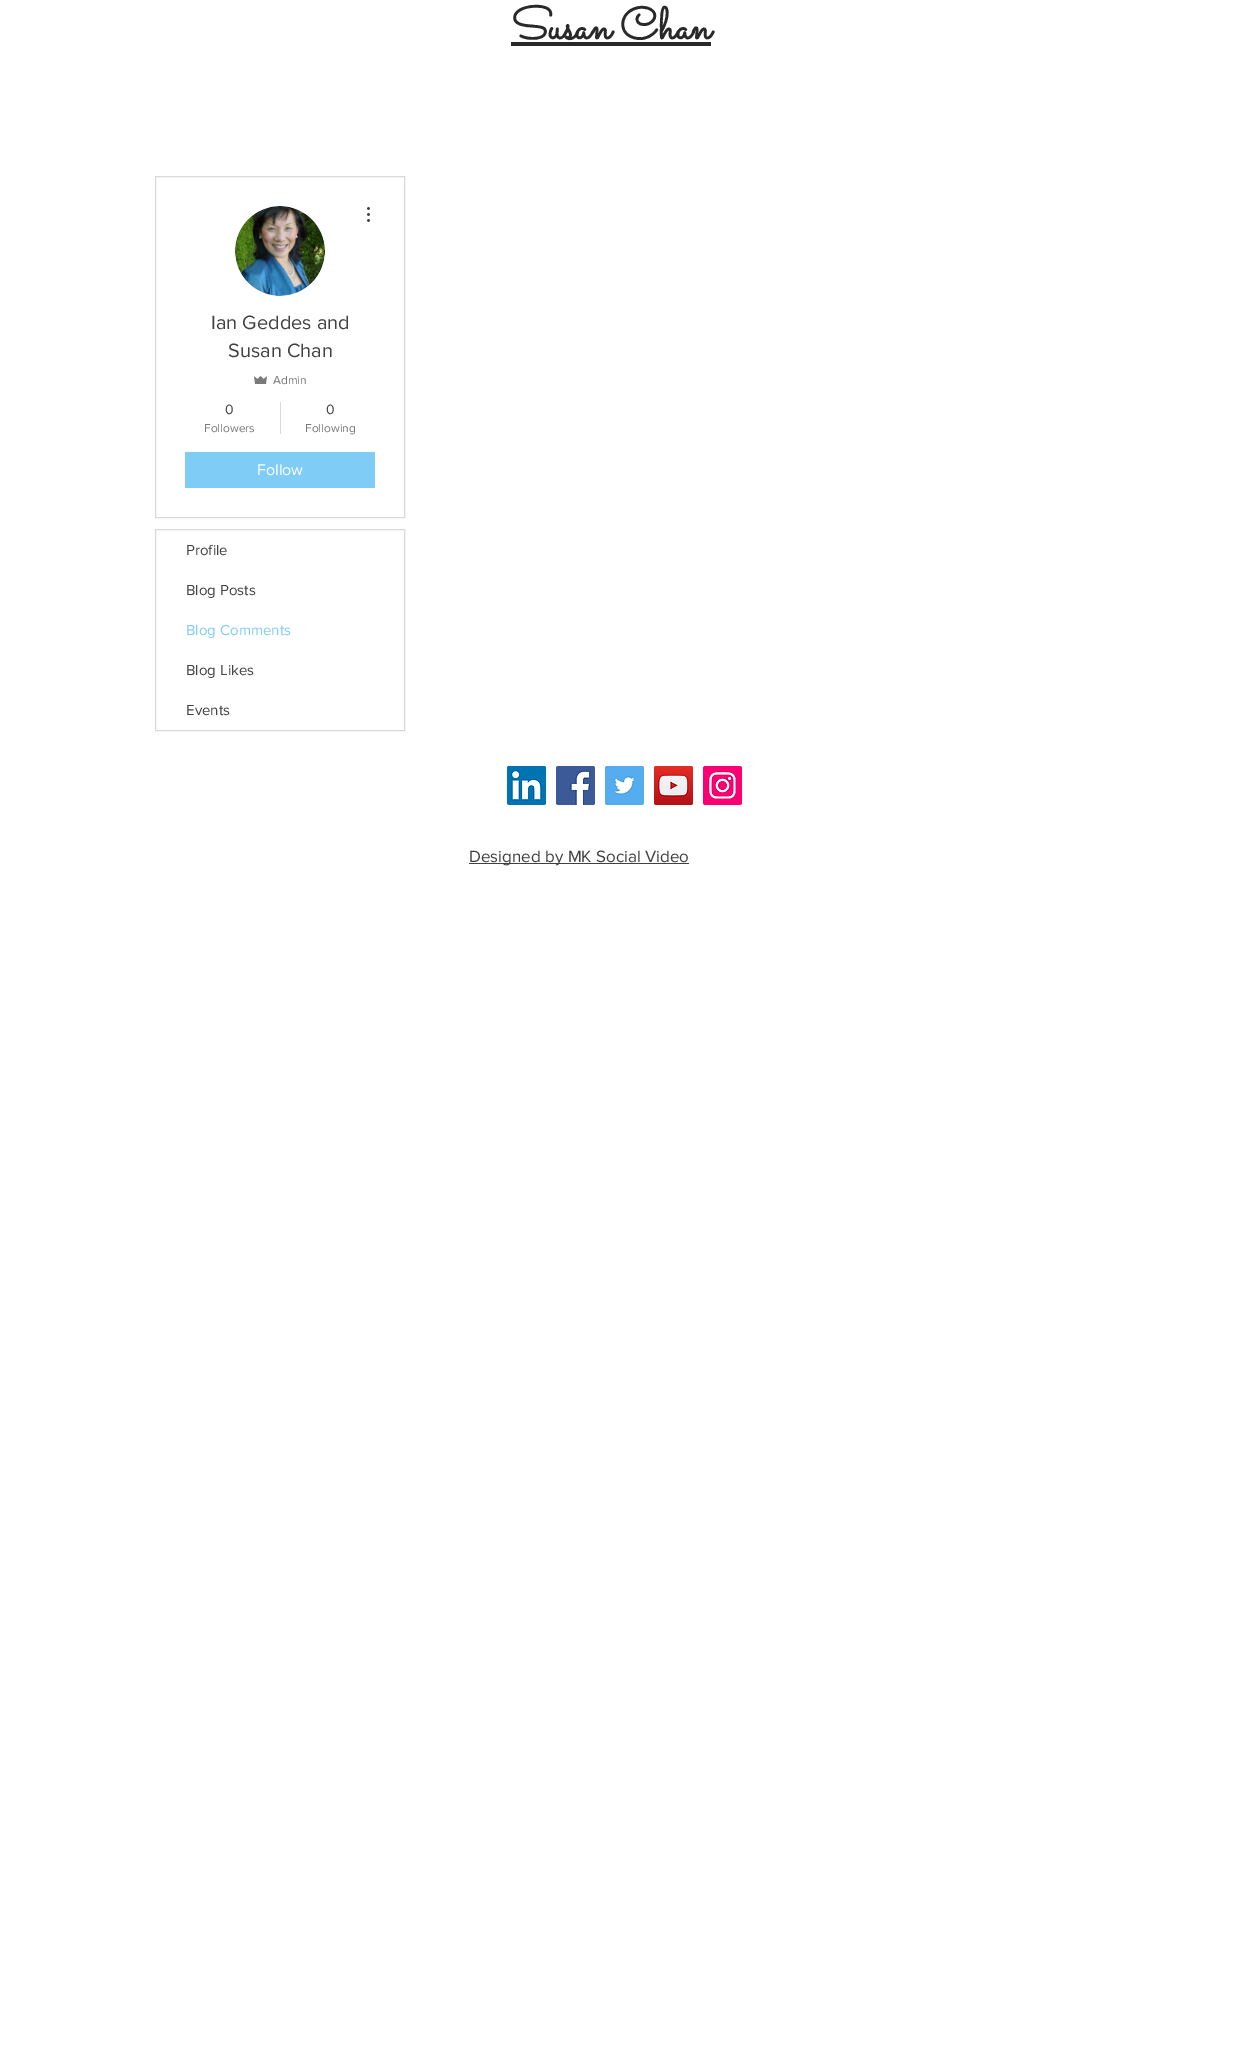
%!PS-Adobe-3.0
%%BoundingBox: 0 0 1250 2054
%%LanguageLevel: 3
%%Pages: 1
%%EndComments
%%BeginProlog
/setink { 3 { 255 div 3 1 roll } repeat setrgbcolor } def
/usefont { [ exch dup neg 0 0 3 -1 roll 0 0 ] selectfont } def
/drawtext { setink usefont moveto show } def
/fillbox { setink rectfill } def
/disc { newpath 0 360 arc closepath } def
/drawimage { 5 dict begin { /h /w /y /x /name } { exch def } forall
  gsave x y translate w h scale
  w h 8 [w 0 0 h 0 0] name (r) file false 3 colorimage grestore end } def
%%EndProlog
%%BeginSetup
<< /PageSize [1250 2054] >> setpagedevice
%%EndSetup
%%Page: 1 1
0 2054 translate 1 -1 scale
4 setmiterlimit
0 0 1250 2054 255 255 255 fillbox
(Susan Chan) 511 39 /Sacramento-Bold 45 41 41 41 drawtext
511 42 200 4 41 41 41 fillbox
217 217 217 setink
155.5 176.5 249 341 rectstroke
216 216 216 setink
280 251 45 disc fill
(assets/img1.rgb) 235 206 90 90 drawimage
(assets/img2.rgb) 367 207 3 15 drawimage
(Ian Geddes and) 211 329 /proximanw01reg-Regular 20 65 65 65 drawtext
(Susan Chan) 228 357 /proximanw01reg-Regular 20 65 65 65 drawtext
(assets/img3.rgb) 254 376 13 8 drawimage
(Admin) 273 384 /proximanw01reg-Regular 12 122 122 122 drawtext
(0) 225 414 /proximanw01reg-Regular 14 65 65 65 drawtext
(Followers) 204 432 /proximanw01reg-Regular 12 122 122 122 drawtext
280 402 1 32 217 217 217 fillbox
(0) 326 414 /proximanw01reg-Regular 14 65 65 65 drawtext
(Following) 305 432 /proximanw01reg-Regular 12 122 122 122 drawtext
185 452 190 36 127 204 247 fillbox
(Follow) 257 475 /proximanw01reg-Regular 16 255 255 255 drawtext
217 217 217 setink
155.5 529.5 249 201 rectstroke
(Profile) 186 555 /proximanw01reg-Regular 15 65 65 65 drawtext
(Blog Posts) 186 595 /proximanw01reg-Regular 15 65 65 65 drawtext
(Blog Comments) 186 635 /proximanw01reg-Regular 15 127 204 247 drawtext
(Blog Likes) 186 675 /proximanw01reg-Regular 15 65 65 65 drawtext
(Events) 186 715 /proximanw01reg-Regular 15 65 65 65 drawtext
(assets/img4.rgb) 507 766 39 39 drawimage
(assets/img5.rgb) 556 766 39 39 drawimage
(assets/img6.rgb) 605 766 39 39 drawimage
(assets/img7.rgb) 654 766 39 39 drawimage
(assets/img8.rgb) 703 766 39 39 drawimage
469 863 220 1 65 65 65 fillbox
(Designed by MK Social Video) 469 862 /proximanw01reg-Regular 17 65 65 65 drawtext
showpage
%%EOF
